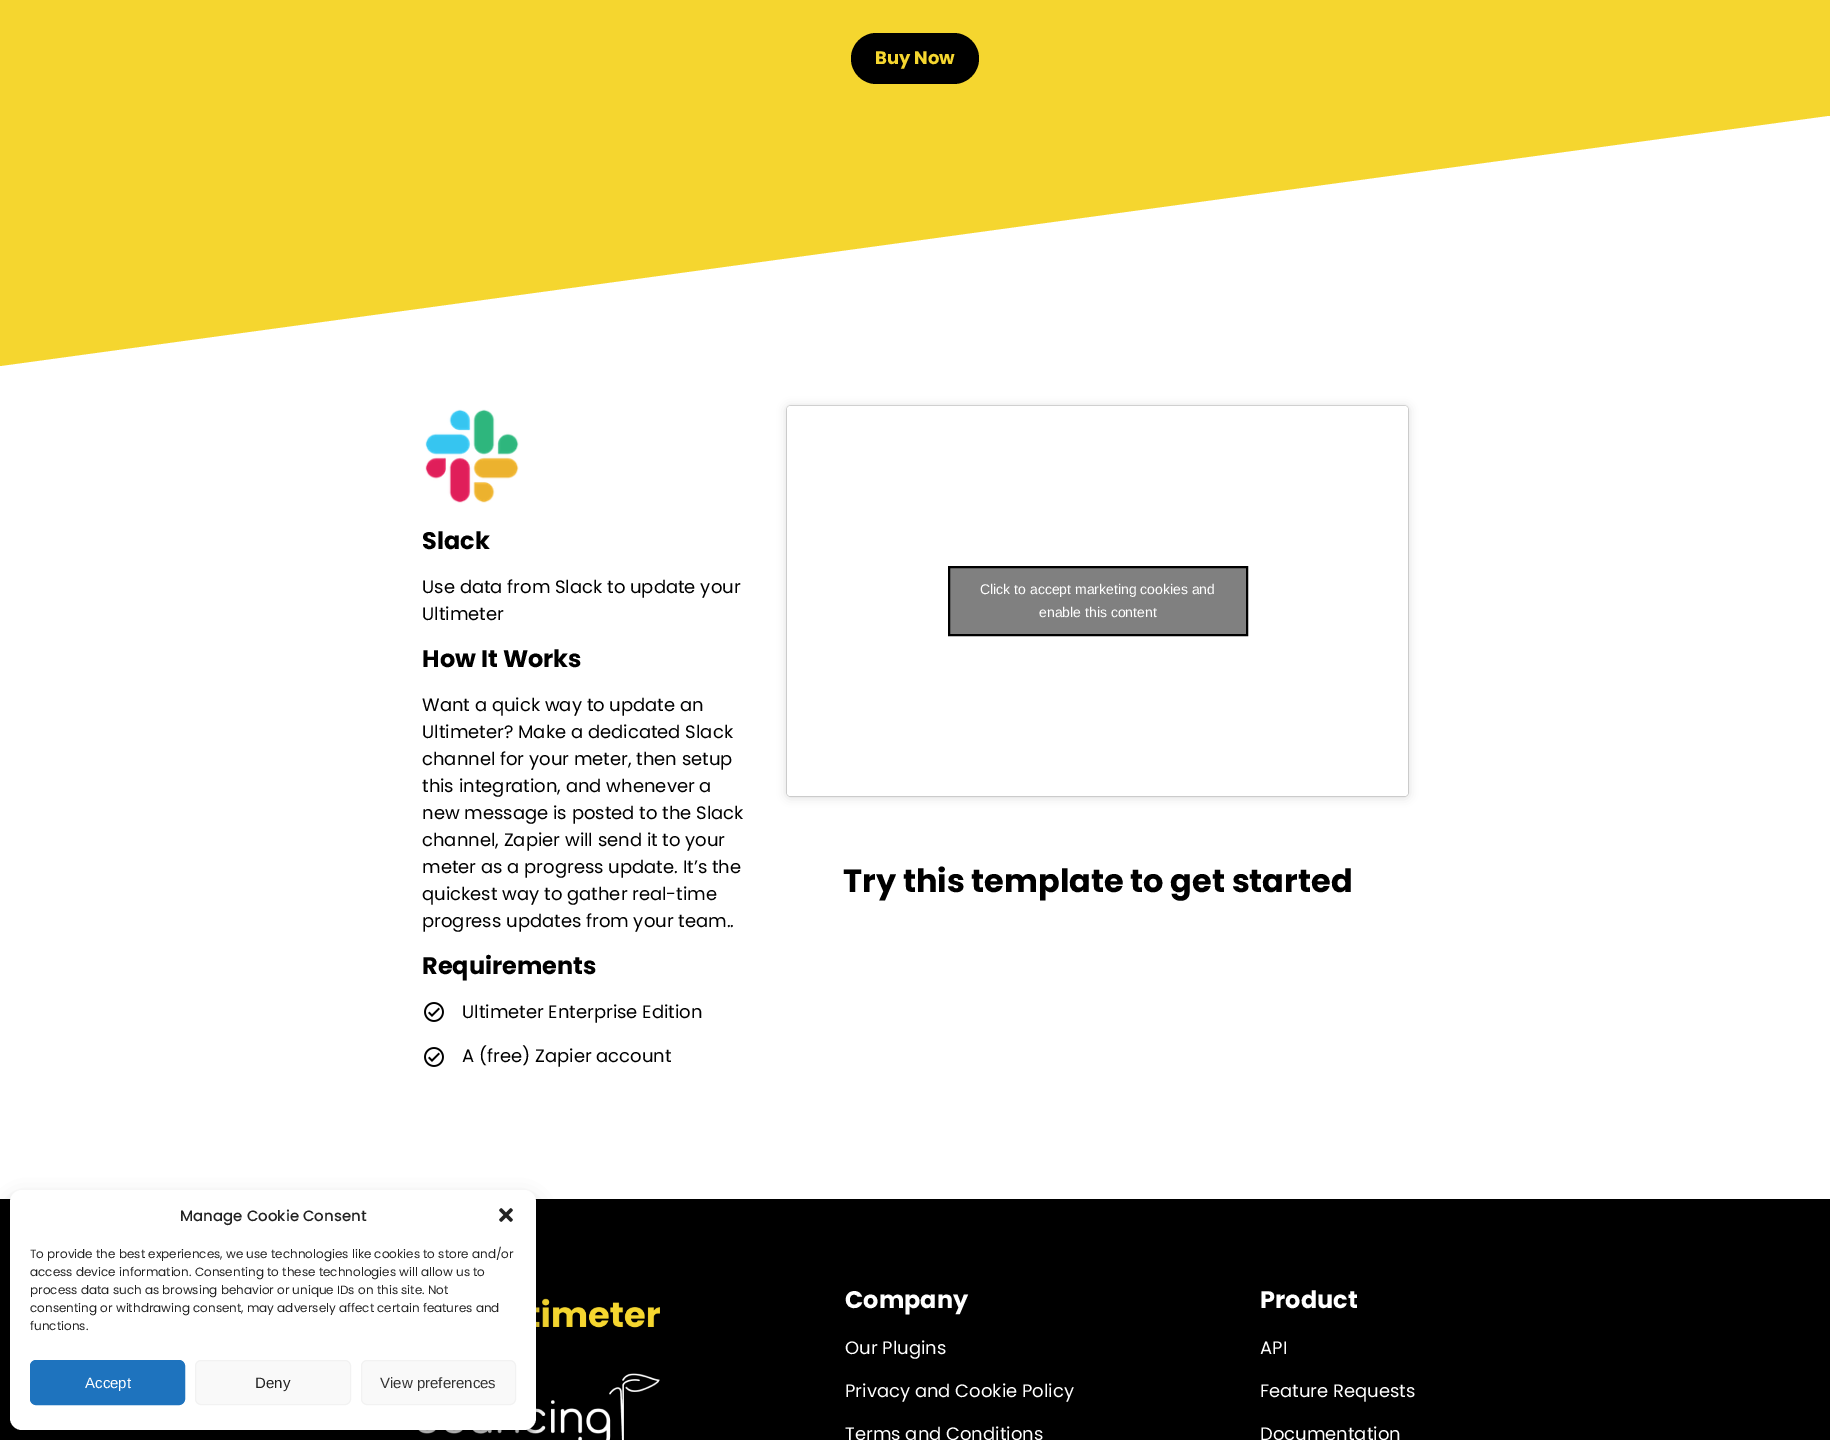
%!PS-Adobe-3.0
%%BoundingBox: 0 0 1830 1440
%%LanguageLevel: 3
%%Pages: 1
%%EndComments
%%BeginProlog
/setink { 3 { 255 div 3 1 roll } repeat setrgbcolor } def
/usefont { [ exch dup neg 0 0 3 -1 roll 0 0 ] selectfont } def
/drawtext { setink usefont moveto show } def
/fillbox { setink rectfill } def
/setalpha { dup .setfillconstantalpha .setstrokeconstantalpha } def
/rrect { 5 dict begin { /r /h /w /y /x } { exch def } forall
  x r add y moveto x w add y 2 copy h add r arct x w add y h add x 1 index r arct
  x y h add x y r arct x y 2 copy exch w add exch r arct closepath end } def
/softshadow { 12 dict begin { /a /b /q /h /w /y /x } { exch def } forall gsave /was 0 def
  9 -2 -9 { dup b mul 4 div /e exch def 1 sub .425 mul 2.718 exch exp 1 add a .99 .min exch div /now exch def
    1 1 now sub 1 was sub div sub setalpha /was now def
    w h .min e 2 mul add 0 gt { x e sub y e sub w e 2 mul add h e 2 mul add
      q e add b .6 mul add w h .min 2 div e add .min 0 .max rrect fill } if } for grestore end } def
/drawimage { 5 dict begin { /h /w /y /x /name } { exch def } forall
  gsave x y translate w h scale
  w h 8 [w 0 0 h 0 0] name (r) file false 3 colorimage grestore end } def
%%EndProlog
%%BeginSetup
<< /PageSize [1830 1440] /PageUsesTransparency true >> setpagedevice
%%EndSetup
%%Page: 1 1
0 .pushpdf14devicefilter
0 1440 translate 1 -1 scale
4 setmiterlimit
0 0 1830 1440 255 255 255 fillbox
0 1199 1830 241 0 0 0 fillbox
(assets/img4.rgb) 536 1298 124 30 drawimage
(assets/img5.rgb) 418 1373 242 67 drawimage
10 1196 526 240 12 3 0.23 softshadow
10 1200 526 240 12 10 0.19 softshadow
255 255 255 setink
10 1190 526 240 12 rrect fill
(Manage Cookie Consent) 180 1221 /Poppins-Medium 15 34 34 34 drawtext
(assets/img1.rgb) 499 1208 14 14 drawimage
(To provide the best experiences, we use technologies like cookies to store and/or) 30 1258 /Poppins-Regular 12 34 34 34 drawtext
(access device information. Consenting to these technologies will allow us to) 30 1276 /Poppins-Regular 12 34 34 34 drawtext
(process data such as browsing behavior or unique IDs on this site. Not) 30 1294 /Poppins-Regular 12 34 34 34 drawtext
(consenting or withdrawing consent, may adversely affect certain features and) 30 1312 /Poppins-Regular 12 34 34 34 drawtext
(functions.) 30 1330 /Poppins-Regular 12 34 34 34 drawtext
30 115 190 setink
30.5 1360.5 154 44 5.5 rrect gsave fill grestore
stroke
(Accept) 85 1388 /LiberationSans-Regular 15 255 255 255 drawtext
249 249 249 setink
195.5 1360.5 155 44 5.5 rrect gsave fill grestore
242 242 242 setink
stroke
(Deny) 255 1388 /LiberationSans-Regular 15 34 34 34 drawtext
249 249 249 setink
361.5 1360.5 154 44 5.5 rrect gsave fill grestore
242 242 242 setink
stroke
(View preferences) 380 1388 /LiberationSans-Regular 15 51 51 51 drawtext
0 0 1830 116 245 214 47 fillbox
0 0 0 setink
851 33 128 51 25.5 rrect fill
(Buy Now) 875 64 /Poppins-Bold 18 245 214 47 drawtext
0 116 moveto 0 366 lineto 1827 116 lineto closepath fill
(assets/img2.rgb) 425 409 94 94 drawimage
(Slack) 422 549 /Poppins-Bold 24 0 0 0 drawtext
(Use data from Slack to update your) 422 593 /Poppins-Regular 18 0 0 0 drawtext
(Ultimeter) 422 620 /Poppins-Regular 18 0 0 0 drawtext
(How It Works) 422 667 /Poppins-Bold 24 0 0 0 drawtext
(Want a quick way to update an) 422 711 /Poppins-Regular 18 0 0 0 drawtext
(Ultimeter? Make a dedicated Slack) 422 738 /Poppins-Regular 18 0 0 0 drawtext
(channel for your meter, then setup) 422 765 /Poppins-Regular 18 0 0 0 drawtext
(this integration, and whenever a) 422 792 /Poppins-Regular 18 0 0 0 drawtext
(new message is posted to the Slack) 422 819 /Poppins-Regular 18 0 0 0 drawtext
(channel, Zapier will send it to your) 422 846 /Poppins-Regular 18 0 0 0 drawtext
(meter as a progress update. It’s the) 422 873 /Poppins-Regular 18 0 0 0 drawtext
(quickest way to gather real-time) 422 900 /Poppins-Regular 18 0 0 0 drawtext
(progress updates from your team..) 422 927 /Poppins-Regular 18 0 0 0 drawtext
(Requirements) 422 974 /Poppins-Bold 24 0 0 0 drawtext
(assets/img3.rgb) 424 1002 20 20 drawimage
(Ultimeter Enterprise Edition) 462 1018 /Poppins-Regular 18 0 0 0 drawtext
(assets/img3.rgb) 424 1047 20 20 drawimage
(A \(free\) Zapier account) 462 1062 /Poppins-Regular 18 0 0 0 drawtext
787 407 621 390 3 5 0.15 softshadow
787 406 621 390 3 0.5 0.5 softshadow
255 255 255 setink
787 406 621 390 3 rrect fill
128 128 128 setink
949 567 moveto 1247 567 lineto 1247 635 lineto 949 635 lineto closepath gsave fill grestore
0 0 0 setink
2 setlinewidth
stroke
(Click to accept marketing cookies and) 980 594 /LiberationSans-Regular 14 255 255 255 drawtext
(enable this content) 1039 617 /LiberationSans-Regular 14 255 255 255 drawtext
(Try this template to get started) 843 892 /Poppins-Bold 32 0 0 0 drawtext
(Company) 845 1308 /Poppins-Bold 24 255 255 255 drawtext
(Our Plugins) 845 1354 /Poppins-Regular 18 255 255 255 drawtext
(Privacy and Cookie Policy) 845 1397 /Poppins-Regular 18 255 255 255 drawtext
(Terms and Conditions) 845 1440 /Poppins-Regular 18 255 255 255 drawtext
(Product) 1260 1308 /Poppins-Bold 24 255 255 255 drawtext
(API) 1260 1354 /Poppins-Regular 18 255 255 255 drawtext
(Feature Requests) 1260 1397 /Poppins-Regular 18 255 255 255 drawtext
(Documentation) 1260 1440 /Poppins-Regular 18 255 255 255 drawtext
.poppdf14devicefilter showpage
%%EOF
